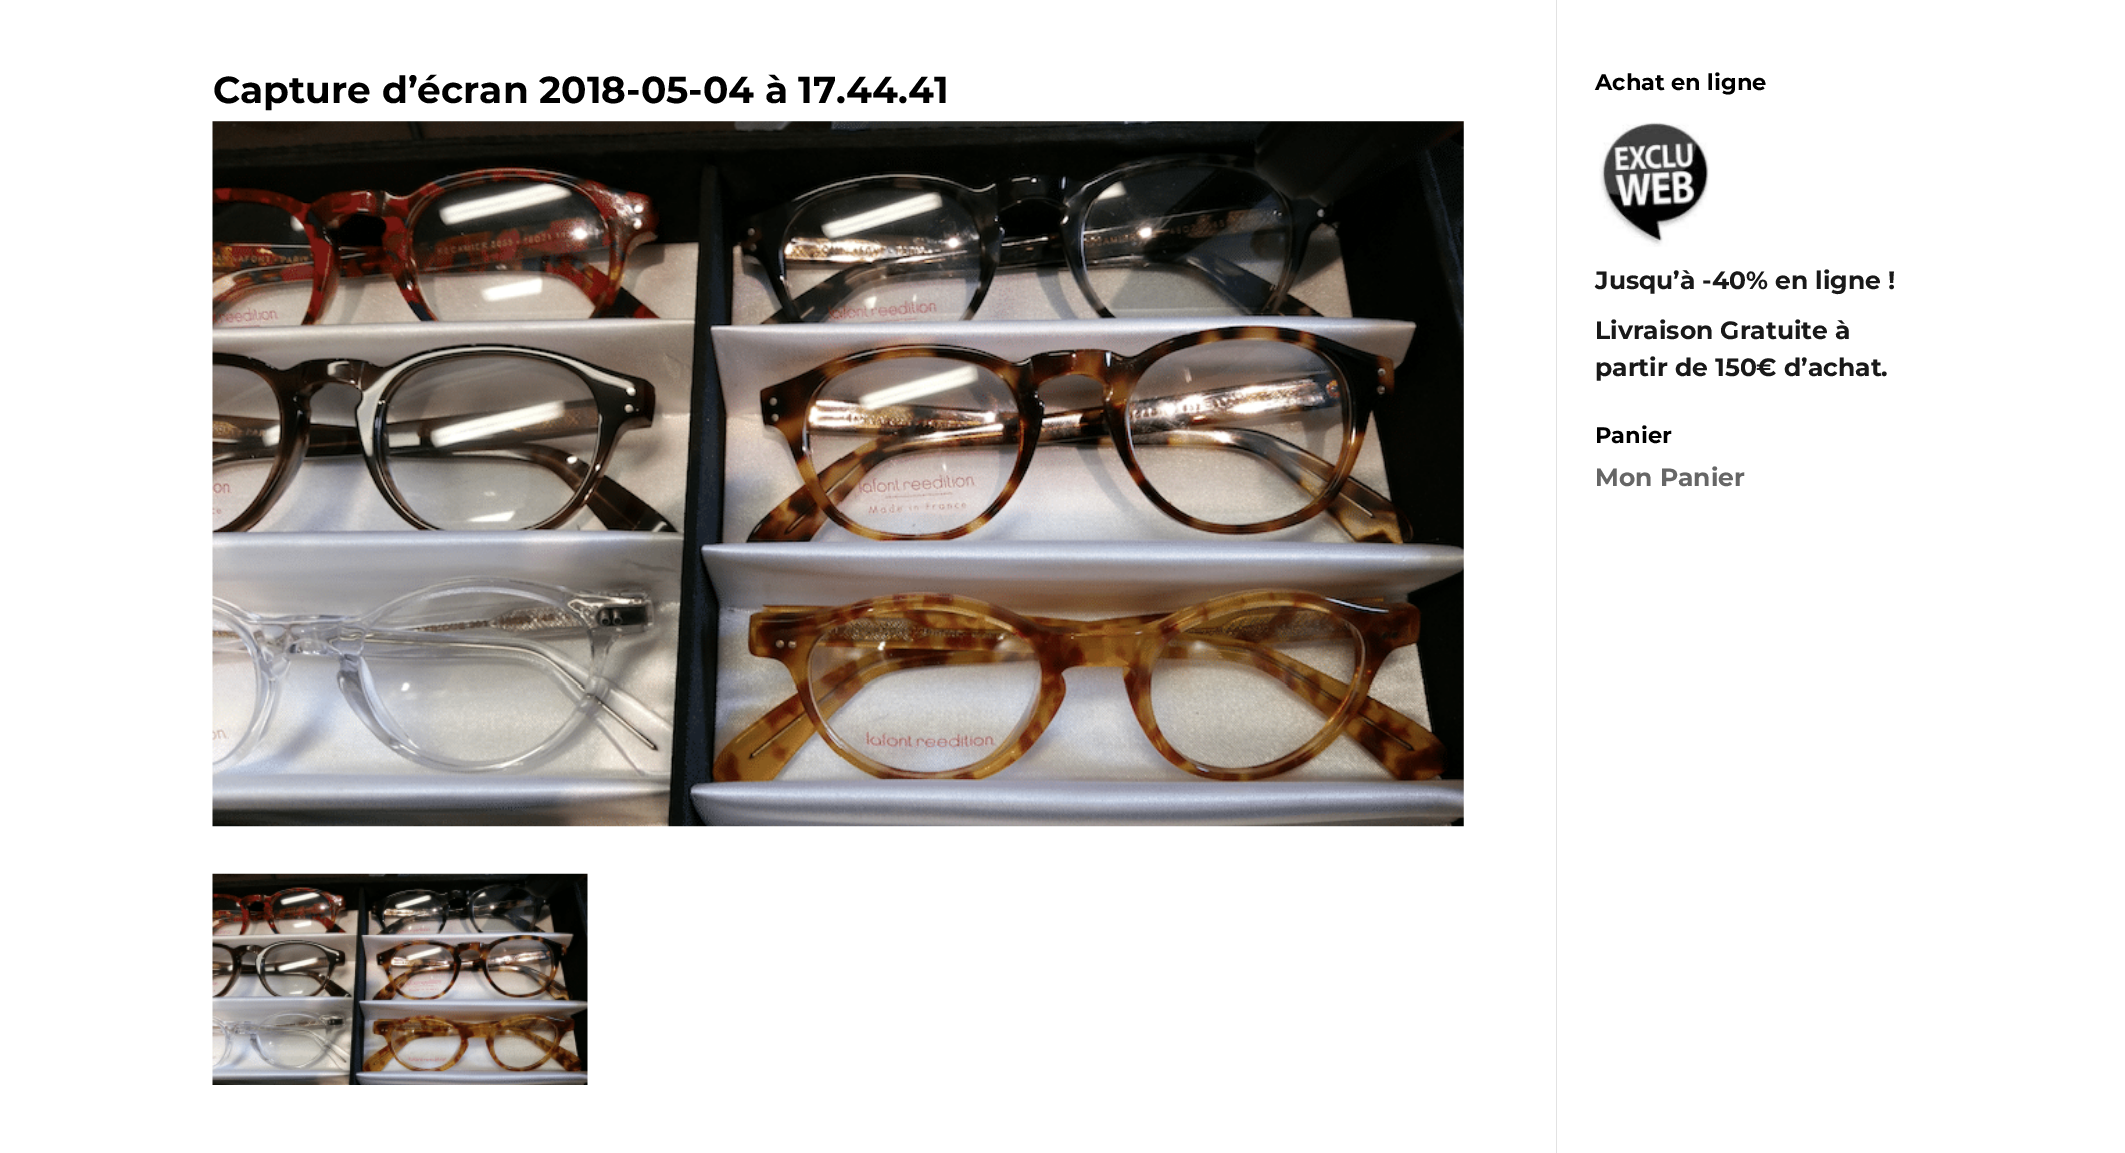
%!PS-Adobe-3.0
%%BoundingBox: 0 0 2125 1153
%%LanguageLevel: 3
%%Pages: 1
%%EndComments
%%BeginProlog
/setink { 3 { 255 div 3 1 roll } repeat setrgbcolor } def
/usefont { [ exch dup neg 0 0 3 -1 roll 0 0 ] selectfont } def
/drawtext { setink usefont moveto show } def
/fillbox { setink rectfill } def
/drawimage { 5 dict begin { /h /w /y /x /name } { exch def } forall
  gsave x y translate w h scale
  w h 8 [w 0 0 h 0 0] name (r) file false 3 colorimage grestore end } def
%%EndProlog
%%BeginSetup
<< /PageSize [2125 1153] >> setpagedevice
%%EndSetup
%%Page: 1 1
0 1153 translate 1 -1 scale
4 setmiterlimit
0 0 2125 1153 255 255 255 fillbox
1556 0 1 1153 226 226 226 fillbox
(Capture d’écran 2018-05-04 à 17.44.41) 213 103 /Montserrat-Thin 37.5 0 0 0 drawtext
(assets/img1.rgb) 212 121 1252 706 drawimage
(assets/img2.rgb) 212 873 376 212 drawimage
(Achat en ligne) 1595 90 /Montserrat-Thin 22.5 0 0 0 drawtext
(assets/img3.rgb) 1599 122 111 125 drawimage
(Jusqu’à -40% en ligne !) 1595 289 /Montserrat-Thin 25 25 25 25 drawtext
(Livraison Gratuite à) 1595 339 /Montserrat-Thin 25 25 25 25 drawtext
(partir de 150€ d’achat.) 1595 376 /Montserrat-Thin 25 25 25 25 drawtext
(Panier) 1595 443 /Montserrat-Thin 22.5 0 0 0 drawtext
(Mon Panier) 1595 486 /Montserrat-Thin 25 102 102 102 drawtext
showpage
%%EOF
